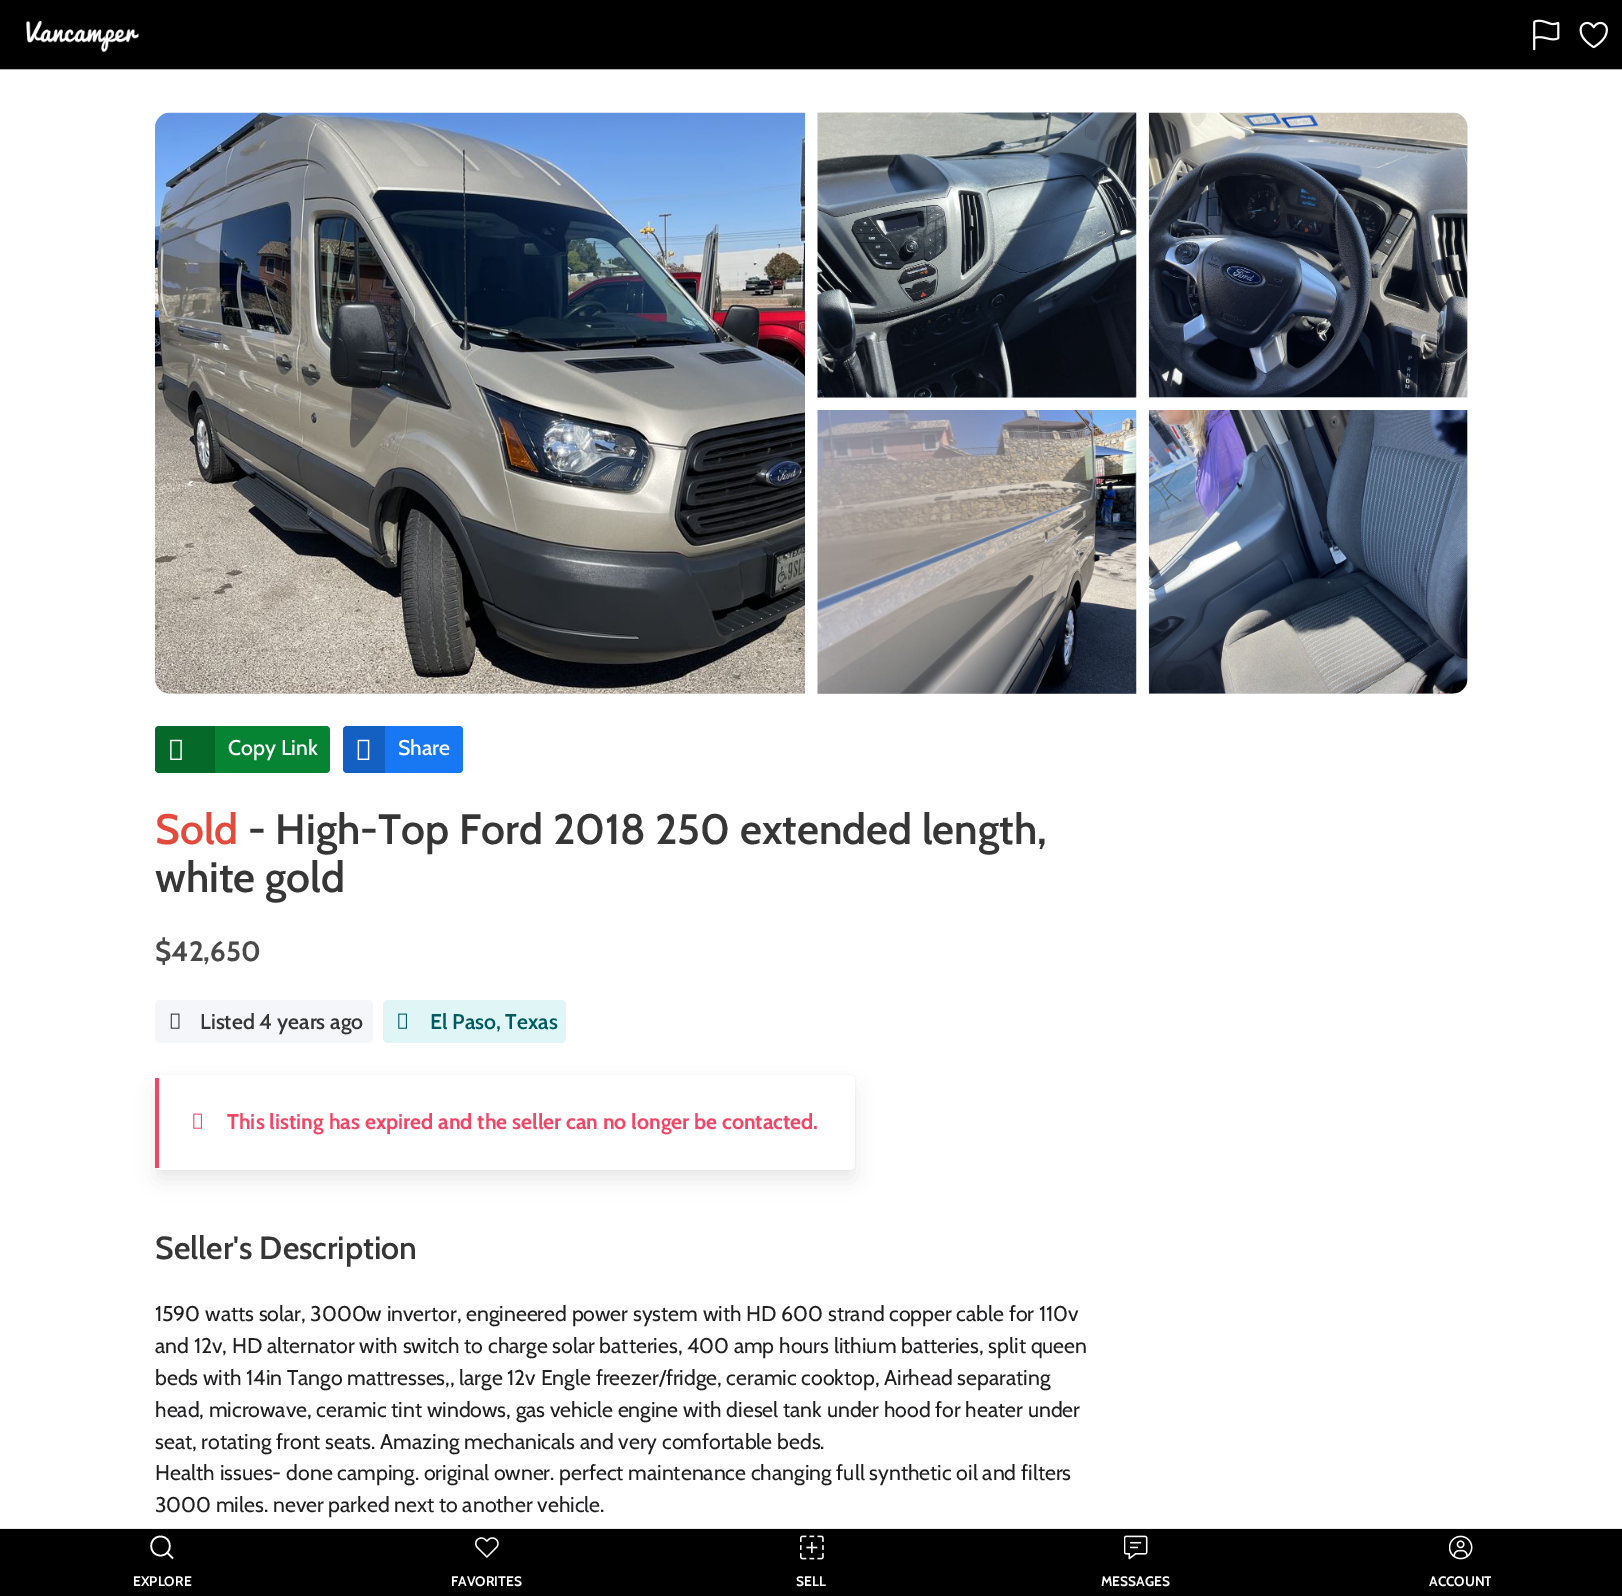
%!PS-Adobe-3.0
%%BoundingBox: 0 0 1622 1596
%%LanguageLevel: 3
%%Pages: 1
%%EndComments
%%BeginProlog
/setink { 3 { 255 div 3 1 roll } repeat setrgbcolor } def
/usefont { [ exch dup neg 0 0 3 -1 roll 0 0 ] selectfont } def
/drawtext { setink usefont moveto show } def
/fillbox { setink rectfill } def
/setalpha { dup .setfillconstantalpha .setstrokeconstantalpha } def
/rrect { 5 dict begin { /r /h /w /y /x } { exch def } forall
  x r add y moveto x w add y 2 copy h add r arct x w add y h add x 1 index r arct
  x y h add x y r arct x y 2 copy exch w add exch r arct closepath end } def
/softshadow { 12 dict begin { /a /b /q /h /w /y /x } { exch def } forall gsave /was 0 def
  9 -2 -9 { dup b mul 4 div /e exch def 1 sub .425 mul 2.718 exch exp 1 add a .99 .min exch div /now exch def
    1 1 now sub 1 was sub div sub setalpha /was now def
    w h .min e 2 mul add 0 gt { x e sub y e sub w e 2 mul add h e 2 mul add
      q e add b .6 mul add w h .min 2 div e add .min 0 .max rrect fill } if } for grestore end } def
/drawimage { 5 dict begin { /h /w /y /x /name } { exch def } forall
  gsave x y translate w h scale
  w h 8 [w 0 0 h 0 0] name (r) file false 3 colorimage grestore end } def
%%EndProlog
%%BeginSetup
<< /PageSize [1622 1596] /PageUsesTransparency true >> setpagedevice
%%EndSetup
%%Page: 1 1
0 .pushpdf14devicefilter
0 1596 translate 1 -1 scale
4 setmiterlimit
0 0 1622 1596 255 255 255 fillbox
0 0 1622 69 0 0 0 fillbox
0 69 1622 1 178 178 178 fillbox
(assets/img1.rgb) 26 20 114 33 drawimage
(assets/img2.rgb) 1533 19 27 32 drawimage
(assets/img3.rgb) 1579 21 29 28 drawimage
gsave 170 113 moveto 805 113 lineto 805 694 lineto 170 694 lineto 161.5 694 155 687.5 155 679 curveto 155 128 lineto 155 119.5 161.5 113 170 113 curveto closepath clip newpath
<< /ShadingType 2 /ColorSpace /DeviceRGB /Coords [155 403 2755 403] /Extend [true true] /Function << /FunctionType 3 /Domain [0 1] /Functions [<< /FunctionType 2 /Domain [0 1] /C0 [0.918 0.918 0.918] /C1 [0.918 0.918 0.918] /N 1 >> << /FunctionType 2 /Domain [0 1] /C0 [0.918 0.918 0.918] /C1 [0.961 0.961 0.961] /N 1 >> << /FunctionType 2 /Domain [0 1] /C0 [0.961 0.961 0.961] /C1 [0.859 0.859 0.859] /N 1 >> << /FunctionType 2 /Domain [0 1] /C0 [0.859 0.859 0.859] /C1 [0.859 0.859 0.859] /N 1 >>] /Bounds [0.15 0.4 0.65] /Encode [0 1 0 1 0 1 0 1] >> >> shfill grestore
(assets/img4.rgb) 155 112 650 582 drawimage
gsave 818 397 moveto 1136 397 lineto 1136 398 lineto 818 398 lineto closepath clip newpath
<< /ShadingType 2 /ColorSpace /DeviceRGB /Coords [818 255 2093 255] /Extend [true true] /Function << /FunctionType 3 /Domain [0 1] /Functions [<< /FunctionType 2 /Domain [0 1] /C0 [0.918 0.918 0.918] /C1 [0.918 0.918 0.918] /N 1 >> << /FunctionType 2 /Domain [0 1] /C0 [0.918 0.918 0.918] /C1 [0.961 0.961 0.961] /N 1 >> << /FunctionType 2 /Domain [0 1] /C0 [0.961 0.961 0.961] /C1 [0.859 0.859 0.859] /N 1 >> << /FunctionType 2 /Domain [0 1] /C0 [0.859 0.859 0.859] /C1 [0.859 0.859 0.859] /N 1 >>] /Bounds [0.15 0.4 0.65] /Encode [0 1 0 1 0 1 0 1] >> >> shfill grestore
(assets/img5.rgb) 817 112 320 286 drawimage
gsave 1149 113 moveto 1453 113 lineto 1461.5 113 1468 119.5 1468 128 curveto 1468 398 lineto 1149 398 lineto closepath clip newpath
<< /ShadingType 2 /ColorSpace /DeviceRGB /Coords [1149 255 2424 255] /Extend [true true] /Function << /FunctionType 3 /Domain [0 1] /Functions [<< /FunctionType 2 /Domain [0 1] /C0 [0.918 0.918 0.918] /C1 [0.918 0.918 0.918] /N 1 >> << /FunctionType 2 /Domain [0 1] /C0 [0.918 0.918 0.918] /C1 [0.961 0.961 0.961] /N 1 >> << /FunctionType 2 /Domain [0 1] /C0 [0.961 0.961 0.961] /C1 [0.859 0.859 0.859] /N 1 >> << /FunctionType 2 /Domain [0 1] /C0 [0.859 0.859 0.859] /C1 [0.859 0.859 0.859] /N 1 >>] /Bounds [0.15 0.4 0.65] /Encode [0 1 0 1 0 1 0 1] >> >> shfill grestore
(assets/img6.rgb) 1148 112 320 286 drawimage
(assets/img7.rgb) 817 410 320 284 drawimage
gsave 1149 410 moveto 1468 410 lineto 1468 679 lineto 1468 687.5 1461.5 694 1453 694 curveto 1149 694 lineto closepath clip newpath
<< /ShadingType 2 /ColorSpace /DeviceRGB /Coords [1149 552 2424 552] /Extend [true true] /Function << /FunctionType 3 /Domain [0 1] /Functions [<< /FunctionType 2 /Domain [0 1] /C0 [0.918 0.918 0.918] /C1 [0.918 0.918 0.918] /N 1 >> << /FunctionType 2 /Domain [0 1] /C0 [0.918 0.918 0.918] /C1 [0.961 0.961 0.961] /N 1 >> << /FunctionType 2 /Domain [0 1] /C0 [0.961 0.961 0.961] /C1 [0.859 0.859 0.859] /N 1 >> << /FunctionType 2 /Domain [0 1] /C0 [0.859 0.859 0.859] /C1 [0.859 0.859 0.859] /N 1 >>] /Bounds [0.15 0.4 0.65] /Encode [0 1 0 1 0 1 0 1] >> >> shfill grestore
(assets/img8.rgb) 1148 410 320 284 drawimage
6 132 51 setink
155 726 175 47 4 rrect fill
0.2 setalpha
0 0 0 setink
159 726 moveto 215 726 lineto 215 773 lineto 159 773 lineto 157 773 155 771 155 769 curveto 155 730 lineto 155 728 157 726 159 726 curveto closepath fill
1 setalpha
(assets/img9.rgb) 170 739 12 21 drawimage
(Copy Link) 228 755 /Cabin-Medium 21.25 255 255 255 drawtext
24 119 242 setink
343 726 120 47 4 rrect fill
0.2 setalpha
0 0 0 setink
347 726 moveto 385 726 lineto 385 773 lineto 347 773 lineto 345 773 343 771 343 769 curveto 343 730 lineto 343 728 345 726 347 726 curveto closepath fill
1 setalpha
(assets/img10.rgb) 357 739 13 21 drawimage
(Share) 398 755 /Cabin-Medium 21.25 255 255 255 drawtext
(Sold) 155 844 /Cabin-SemiBold 42.5 227 74 59 drawtext
(- High-Top Ford 2018 250 extended length,) 248 844 /Cabin-SemiBold 42.5 54 54 54 drawtext
(white gold) 155 892 /Cabin-SemiBold 42.5 54 54 54 drawtext
($42,650) 155 961 /Cabin-Bold 28 74 74 74 drawtext
244 246 250 setink
155 1000 218 43 5 rrect fill
(assets/img11.rgb) 170 1013 10 16 drawimage
(Listed 4 years ago) 200 1029 /Cabin-SemiBold 21.25 54 54 54 drawtext
224 245 245 setink
383 1000 183 43 5 rrect fill
(assets/img12.rgb) 398 1013 9 16 drawimage
(El Paso, Texas) 430 1029 /Cabin-SemiBold 21.25 0 90 97 drawtext
250 250 250 setink
154.5 1074.5 701 96 5.5 rrect stroke
10 10 10 setink
158 1089 695 89 2.5 10.5 0.1 softshadow
255 255 255 setink
155 1075 700 95 5 rrect fill
155 1078 4 90 241 70 104 fillbox
(assets/img13.rgb) 193 1113 9 16 drawimage
(This listing has expired and the seller can no longer be contacted.) 227 1129 /Cabin-Bold 21.25 241 70 104 drawtext
(Seller's Description) 155 1259 /Cabin-SemiBold 32 54 54 54 drawtext
(1590 watts solar, 3000w invertor, engineered power system with HD 600 strand copper cable for 110v) 155 1321 /Cabin-Regular 21.25 31 31 33 drawtext
(and 12v, HD alternator with switch to charge solar batteries, 400 amp hours lithium batteries, split queen) 155 1353 /Cabin-Regular 21.25 31 31 33 drawtext
(beds with 14in Tango mattresses,, large 12v Engle freezer/fridge, ceramic cooktop, Airhead separating) 155 1385 /Cabin-Regular 21.25 31 31 33 drawtext
(head, microwave, ceramic tint windows, gas vehicle engine with diesel tank under hood for heater under) 155 1417 /Cabin-Regular 21.25 31 31 33 drawtext
(seat, rotating front seats. Amazing mechanicals and very comfortable beds.) 155 1449 /Cabin-Regular 21.25 31 31 33 drawtext
(Health issues- done camping. original owner. perfect maintenance changing full synthetic oil and filters) 155 1480 /Cabin-Regular 21.25 31 31 33 drawtext
(3000 miles. never parked next to another vehicle.) 155 1512 /Cabin-Regular 21.25 31 31 33 drawtext
0 1529 1622 67 0 0 0 fillbox
0 1528 1622 1 234 236 239 fillbox
255 255 255 setink
1.6 setlinewidth
173 1558.5 moveto 166.5 1552 lineto 160.5 1555.5 moveto 148 1555.5 148 1536.5 160.5 1536.5 curveto 173 1536.5 173 1555.5 160.5 1555.5 curveto closepath stroke
(EXPLORE) 133 1586 /Cabin-Bold 13.75 255 255 255 drawtext
(assets/img14.rgb) 475 1537 24 21 drawimage
(FAVORITES) 451 1586 /Cabin-Bold 13.75 255 255 255 drawtext
(assets/img15.rgb) 800 1535 24 25 drawimage
(SELL) 796 1586 /Cabin-Bold 13.75 255 255 255 drawtext
(assets/img16.rgb) 1124 1535 24 25 drawimage
(MESSAGES) 1101 1586 /Cabin-Bold 13.75 255 255 255 drawtext
(assets/img17.rgb) 1449 1535 24 25 drawimage
gsave
1429 1569 62 26 rectclip
(ACCOUNT) 1429 1586 /Cabin-Bold 13.75 255 255 255 drawtext
grestore
.poppdf14devicefilter showpage
%%EOF
